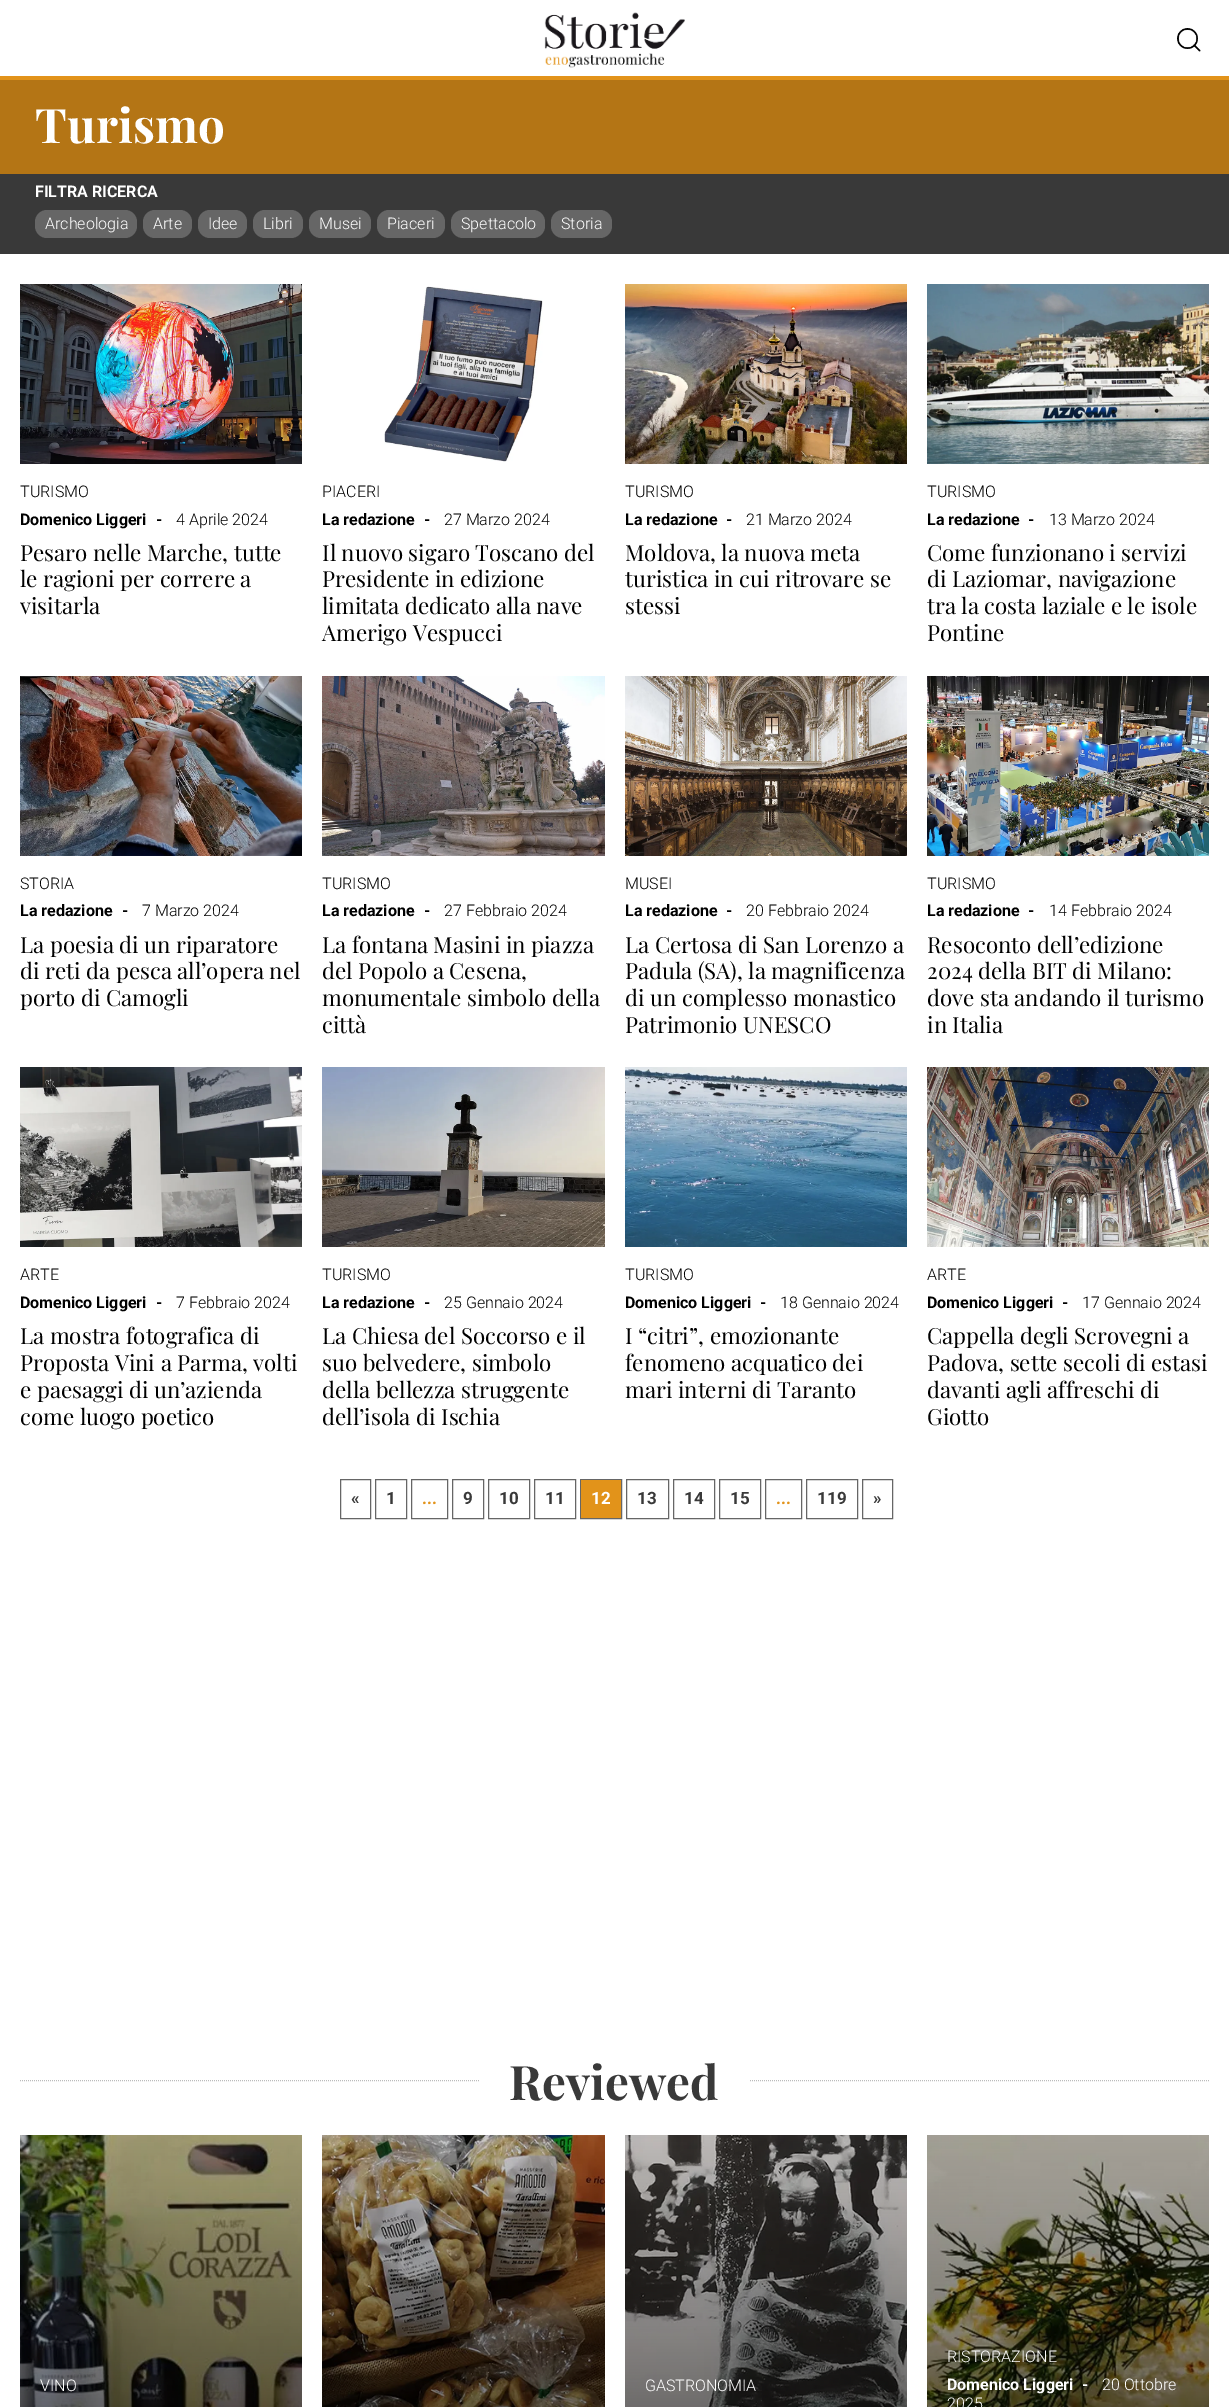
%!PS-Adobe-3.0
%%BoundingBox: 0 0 1229 2407
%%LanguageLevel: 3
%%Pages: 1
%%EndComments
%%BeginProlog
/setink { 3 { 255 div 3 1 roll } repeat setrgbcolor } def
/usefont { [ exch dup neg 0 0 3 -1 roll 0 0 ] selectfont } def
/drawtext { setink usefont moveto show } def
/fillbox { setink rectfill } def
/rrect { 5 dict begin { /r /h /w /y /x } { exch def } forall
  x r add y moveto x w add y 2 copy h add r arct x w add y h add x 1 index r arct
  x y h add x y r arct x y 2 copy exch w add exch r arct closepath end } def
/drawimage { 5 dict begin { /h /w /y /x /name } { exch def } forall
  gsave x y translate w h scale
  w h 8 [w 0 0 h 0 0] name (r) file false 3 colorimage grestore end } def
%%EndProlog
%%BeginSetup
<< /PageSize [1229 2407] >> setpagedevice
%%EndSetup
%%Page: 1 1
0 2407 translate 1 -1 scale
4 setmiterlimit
0 0 1229 2407 255 255 255 fillbox
0 76 1229 4 226 147 26 fillbox
(assets/img1.rgb) 544 12 141 56 drawimage
(assets/img2.rgb) 1177 28 24 24 drawimage
0 80 1229 94 180 117 21 fillbox
(Turismo) 35 143 /PlayfairDisplay-Bold 47.5 255 255 255 drawtext
0 174 1229 80 57 57 57 fillbox
(FILTRA RICERCA) 35 197 /Roboto-Bold 16 255 255 255 drawtext
102 102 102 setink
35 210 102 28 12 rrect fill
(Archeologia) 45 229 /Roboto-Light 16 255 255 255 drawtext
102 102 102 setink
143 210 49 28 12 rrect fill
(Arte) 153 229 /Roboto-Light 16 255 255 255 drawtext
102 102 102 setink
198 210 49 28 12 rrect fill
(Idee) 208 229 /Roboto-Light 16 255 255 255 drawtext
102 102 102 setink
253 210 50 28 12 rrect fill
(Libri) 263 229 /Roboto-Light 16 255 255 255 drawtext
102 102 102 setink
309 210 62 28 12 rrect fill
(Musei) 319 229 /Roboto-Light 16 255 255 255 drawtext
102 102 102 setink
377 210 68 28 12 rrect fill
(Piaceri) 387 229 /Roboto-Light 16 255 255 255 drawtext
102 102 102 setink
451 210 94 28 12 rrect fill
(Spettacolo) 461 229 /Roboto-Light 16 255 255 255 drawtext
102 102 102 setink
551 210 61 28 12 rrect fill
(Storia) 561 229 /Roboto-Light 16 255 255 255 drawtext
(assets/img3.rgb) 20 284 282 180 drawimage
(TURISMO) 20 497 /Roboto-Light 16 0 0 0 drawtext
(Domenico Liggeri) 20 525 /Roboto-Bold 16 0 0 0 drawtext
(-) 156 525 /Roboto-Bold 16 0 0 0 drawtext
(4 Aprile 2024) 176 525 /Roboto-Light 16 0 0 0 drawtext
(Pesaro nelle Marche, tutte) 20 561 /PlayfairDisplay-Regular 22.25 0 0 0 drawtext
(le ragioni per correre a) 20 587 /PlayfairDisplay-Regular 22.25 0 0 0 drawtext
(visitarla) 20 614 /PlayfairDisplay-Regular 22.25 0 0 0 drawtext
(assets/img4.rgb) 384 286 159 176 drawimage
(PIACERI) 322 497 /Roboto-Light 16 0 0 0 drawtext
(La redazione) 322 525 /Roboto-Bold 16 0 0 0 drawtext
(-) 424 525 /Roboto-Bold 16 0 0 0 drawtext
(27 Marzo 2024) 444 525 /Roboto-Light 16 0 0 0 drawtext
(Il nuovo sigaro Toscano del) 322 561 /PlayfairDisplay-Regular 22.25 0 0 0 drawtext
(Presidente in edizione) 322 587 /PlayfairDisplay-Regular 22.25 0 0 0 drawtext
(limitata dedicato alla nave) 322 614 /PlayfairDisplay-Regular 22.25 0 0 0 drawtext
(Amerigo Vespucci) 322 641 /PlayfairDisplay-Regular 22.25 0 0 0 drawtext
(assets/img5.rgb) 625 284 282 180 drawimage
(TURISMO) 625 497 /Roboto-Light 16 0 0 0 drawtext
(La redazione) 625 525 /Roboto-Bold 16 0 0 0 drawtext
(-) 726 525 /Roboto-Bold 16 0 0 0 drawtext
(21 Marzo 2024) 746 525 /Roboto-Light 16 0 0 0 drawtext
(Moldova, la nuova meta) 625 561 /PlayfairDisplay-Regular 22.25 0 0 0 drawtext
(turistica in cui ritrovare se) 625 587 /PlayfairDisplay-Regular 22.25 0 0 0 drawtext
(stessi) 625 614 /PlayfairDisplay-Regular 22.25 0 0 0 drawtext
(assets/img6.rgb) 927 284 282 180 drawimage
(TURISMO) 927 497 /Roboto-Light 16 0 0 0 drawtext
(La redazione) 927 525 /Roboto-Bold 16 0 0 0 drawtext
(-) 1028 525 /Roboto-Bold 16 0 0 0 drawtext
(13 Marzo 2024) 1049 525 /Roboto-Light 16 0 0 0 drawtext
(Come funzionano i servizi) 927 561 /PlayfairDisplay-Regular 22.25 0 0 0 drawtext
(di Laziomar, navigazione) 927 587 /PlayfairDisplay-Regular 22.25 0 0 0 drawtext
(tra la costa laziale e le isole) 927 614 /PlayfairDisplay-Regular 22.25 0 0 0 drawtext
(Pontine) 927 641 /PlayfairDisplay-Regular 22.25 0 0 0 drawtext
(assets/img7.rgb) 20 676 282 180 drawimage
(STORIA) 20 889 /Roboto-Light 16 0 0 0 drawtext
(La redazione) 20 916 /Roboto-Bold 16 0 0 0 drawtext
(-) 122 916 /Roboto-Bold 16 0 0 0 drawtext
(7 Marzo 2024) 142 916 /Roboto-Light 16 0 0 0 drawtext
(La poesia di un riparatore) 20 953 /PlayfairDisplay-Regular 22.25 0 0 0 drawtext
(di reti da pesca all’opera nel) 20 979 /PlayfairDisplay-Regular 22.25 0 0 0 drawtext
(porto di Camogli) 20 1006 /PlayfairDisplay-Regular 22.25 0 0 0 drawtext
(assets/img8.rgb) 322 676 283 180 drawimage
(TURISMO) 322 889 /Roboto-Light 16 0 0 0 drawtext
(La redazione) 322 916 /Roboto-Bold 16 0 0 0 drawtext
(-) 424 916 /Roboto-Bold 16 0 0 0 drawtext
(27 Febbraio 2024) 444 916 /Roboto-Light 16 0 0 0 drawtext
(La fontana Masini in piazza) 322 953 /PlayfairDisplay-Regular 22.25 0 0 0 drawtext
(del Popolo a Cesena,) 322 979 /PlayfairDisplay-Regular 22.25 0 0 0 drawtext
(monumentale simbolo della) 322 1006 /PlayfairDisplay-Regular 22.25 0 0 0 drawtext
(città) 322 1033 /PlayfairDisplay-Regular 22.25 0 0 0 drawtext
(assets/img9.rgb) 625 676 282 180 drawimage
(MUSEI) 625 889 /Roboto-Light 16 0 0 0 drawtext
(La redazione) 625 916 /Roboto-Bold 16 0 0 0 drawtext
(-) 726 916 /Roboto-Bold 16 0 0 0 drawtext
(20 Febbraio 2024) 746 916 /Roboto-Light 16 0 0 0 drawtext
(La Certosa di San Lorenzo a) 625 953 /PlayfairDisplay-Regular 22.25 0 0 0 drawtext
(Padula \(SA\), la magnificenza) 625 979 /PlayfairDisplay-Regular 22.25 0 0 0 drawtext
(di un complesso monastico) 625 1006 /PlayfairDisplay-Regular 22.25 0 0 0 drawtext
(Patrimonio UNESCO) 625 1033 /PlayfairDisplay-Regular 22.25 0 0 0 drawtext
(assets/img10.rgb) 927 676 282 180 drawimage
(TURISMO) 927 889 /Roboto-Light 16 0 0 0 drawtext
(La redazione) 927 916 /Roboto-Bold 16 0 0 0 drawtext
(-) 1028 916 /Roboto-Bold 16 0 0 0 drawtext
(14 Febbraio 2024) 1049 916 /Roboto-Light 16 0 0 0 drawtext
(Resoconto dell’edizione) 927 953 /PlayfairDisplay-Regular 22.25 0 0 0 drawtext
(2024 della BIT di Milano:) 927 979 /PlayfairDisplay-Regular 22.25 0 0 0 drawtext
(dove sta andando il turismo) 927 1006 /PlayfairDisplay-Regular 22.25 0 0 0 drawtext
(in Italia) 927 1033 /PlayfairDisplay-Regular 22.25 0 0 0 drawtext
(assets/img11.rgb) 20 1067 282 180 drawimage
(ARTE) 20 1280 /Roboto-Light 16 0 0 0 drawtext
(Domenico Liggeri) 20 1308 /Roboto-Bold 16 0 0 0 drawtext
(-) 156 1308 /Roboto-Bold 16 0 0 0 drawtext
(7 Febbraio 2024) 176 1308 /Roboto-Light 16 0 0 0 drawtext
(La mostra fotografica di) 20 1344 /PlayfairDisplay-Regular 22.25 0 0 0 drawtext
(Proposta Vini a Parma, volti) 20 1371 /PlayfairDisplay-Regular 22.25 0 0 0 drawtext
(e paesaggi di un’azienda) 20 1398 /PlayfairDisplay-Regular 22.25 0 0 0 drawtext
(come luogo poetico) 20 1425 /PlayfairDisplay-Regular 22.25 0 0 0 drawtext
(assets/img12.rgb) 322 1067 283 180 drawimage
(TURISMO) 322 1280 /Roboto-Light 16 0 0 0 drawtext
(La redazione) 322 1308 /Roboto-Bold 16 0 0 0 drawtext
(-) 424 1308 /Roboto-Bold 16 0 0 0 drawtext
(25 Gennaio 2024) 444 1308 /Roboto-Light 16 0 0 0 drawtext
(La Chiesa del Soccorso e il) 322 1344 /PlayfairDisplay-Regular 22.25 0 0 0 drawtext
(suo belvedere, simbolo) 322 1371 /PlayfairDisplay-Regular 22.25 0 0 0 drawtext
(della bellezza struggente) 322 1398 /PlayfairDisplay-Regular 22.25 0 0 0 drawtext
(dell’isola di Ischia) 322 1425 /PlayfairDisplay-Regular 22.25 0 0 0 drawtext
(assets/img13.rgb) 625 1067 282 180 drawimage
(TURISMO) 625 1280 /Roboto-Light 16 0 0 0 drawtext
(Domenico Liggeri) 625 1308 /Roboto-Bold 16 0 0 0 drawtext
(-) 760 1308 /Roboto-Bold 16 0 0 0 drawtext
(18 Gennaio 2024) 780 1308 /Roboto-Light 16 0 0 0 drawtext
(I “citri”, emozionante) 625 1344 /PlayfairDisplay-Regular 22.25 0 0 0 drawtext
(fenomeno acquatico dei) 625 1371 /PlayfairDisplay-Regular 22.25 0 0 0 drawtext
(mari interni di Taranto) 625 1398 /PlayfairDisplay-Regular 22.25 0 0 0 drawtext
(assets/img14.rgb) 927 1067 282 180 drawimage
(ARTE) 927 1280 /Roboto-Light 16 0 0 0 drawtext
(Domenico Liggeri) 927 1308 /Roboto-Bold 16 0 0 0 drawtext
(-) 1062 1308 /Roboto-Bold 16 0 0 0 drawtext
(17 Gennaio 2024) 1082 1308 /Roboto-Light 16 0 0 0 drawtext
(Cappella degli Scrovegni a) 927 1344 /PlayfairDisplay-Regular 22.25 0 0 0 drawtext
(Padova, sette secoli di estasi) 927 1371 /PlayfairDisplay-Regular 22.25 0 0 0 drawtext
(davanti agli affreschi di) 927 1398 /PlayfairDisplay-Regular 22.25 0 0 0 drawtext
(Giotto) 927 1425 /PlayfairDisplay-Regular 22.25 0 0 0 drawtext
102 102 102 setink
340.5 1479.5 30 39 rectstroke
(«) 351 1504 /Roboto-Bold 17 57 57 57 drawtext
102 102 102 setink
375.5 1479.5 31 39 rectstroke
(1) 386 1504 /Roboto-Bold 17 57 57 57 drawtext
102 102 102 setink
411.5 1479.5 36 39 rectstroke
(...) 422 1504 /Roboto-Bold 17 226 147 26 drawtext
102 102 102 setink
452.5 1479.5 31 39 rectstroke
(9) 463 1504 /Roboto-Bold 17 57 57 57 drawtext
102 102 102 setink
488.5 1479.5 41 39 rectstroke
(10) 499 1504 /Roboto-Bold 17 57 57 57 drawtext
102 102 102 setink
534.5 1479.5 41 39 rectstroke
(11) 545 1504 /Roboto-Bold 17 57 57 57 drawtext
102 102 102 setink
580.5 1479.5 41 39 rectstroke
581 1480 40 38 226 147 26 fillbox
(12) 591 1504 /Roboto-Bold 17 255 255 255 drawtext
102 102 102 setink
626.5 1479.5 42 39 rectstroke
(13) 637 1504 /Roboto-Bold 17 57 57 57 drawtext
102 102 102 setink
673.5 1479.5 41 39 rectstroke
(14) 684 1504 /Roboto-Bold 17 57 57 57 drawtext
102 102 102 setink
719.5 1479.5 41 39 rectstroke
(15) 730 1504 /Roboto-Bold 17 57 57 57 drawtext
102 102 102 setink
765.5 1479.5 36 39 rectstroke
(...) 776 1504 /Roboto-Bold 17 226 147 26 drawtext
102 102 102 setink
806.5 1479.5 51 39 rectstroke
(119) 817 1504 /Roboto-Bold 17 57 57 57 drawtext
102 102 102 setink
862.5 1479.5 30 39 rectstroke
(») 873 1504 /Roboto-Bold 17 57 57 57 drawtext
187 187 187 setink
[1 1] 0 setdash
20 2080.5 moveto 479 2080.5 lineto stroke
(Reviewed) 509 2100 /PlayfairDisplay-Bold 47.5 57 57 57 drawtext
187 187 187 setink
750 2080.5 moveto 1209 2080.5 lineto stroke
(assets/img15.rgb) 20 2135 282 272 drawimage
(VINO) 40 2391 /Roboto-Light 16 255 255 255 drawtext
(assets/img16.rgb) 322 2135 283 272 drawimage
(assets/img17.rgb) 625 2135 282 272 drawimage
(GASTRONOMIA) 645 2391 /Roboto-Light 16 255 255 255 drawtext
(assets/img18.rgb) 927 2135 282 272 drawimage
(RISTORAZIONE) 947 2362 /Roboto-Light 16 255 255 255 drawtext
(Domenico Liggeri) 947 2390 /Roboto-Bold 16 255 255 255 drawtext
(-) 1082 2390 /Roboto-Bold 16 255 255 255 drawtext
(20 Ottobre) 1102 2390 /Roboto-Light 16 255 255 255 drawtext
(2025) 947 2409 /Roboto-Light 16 255 255 255 drawtext
showpage
%%EOF
